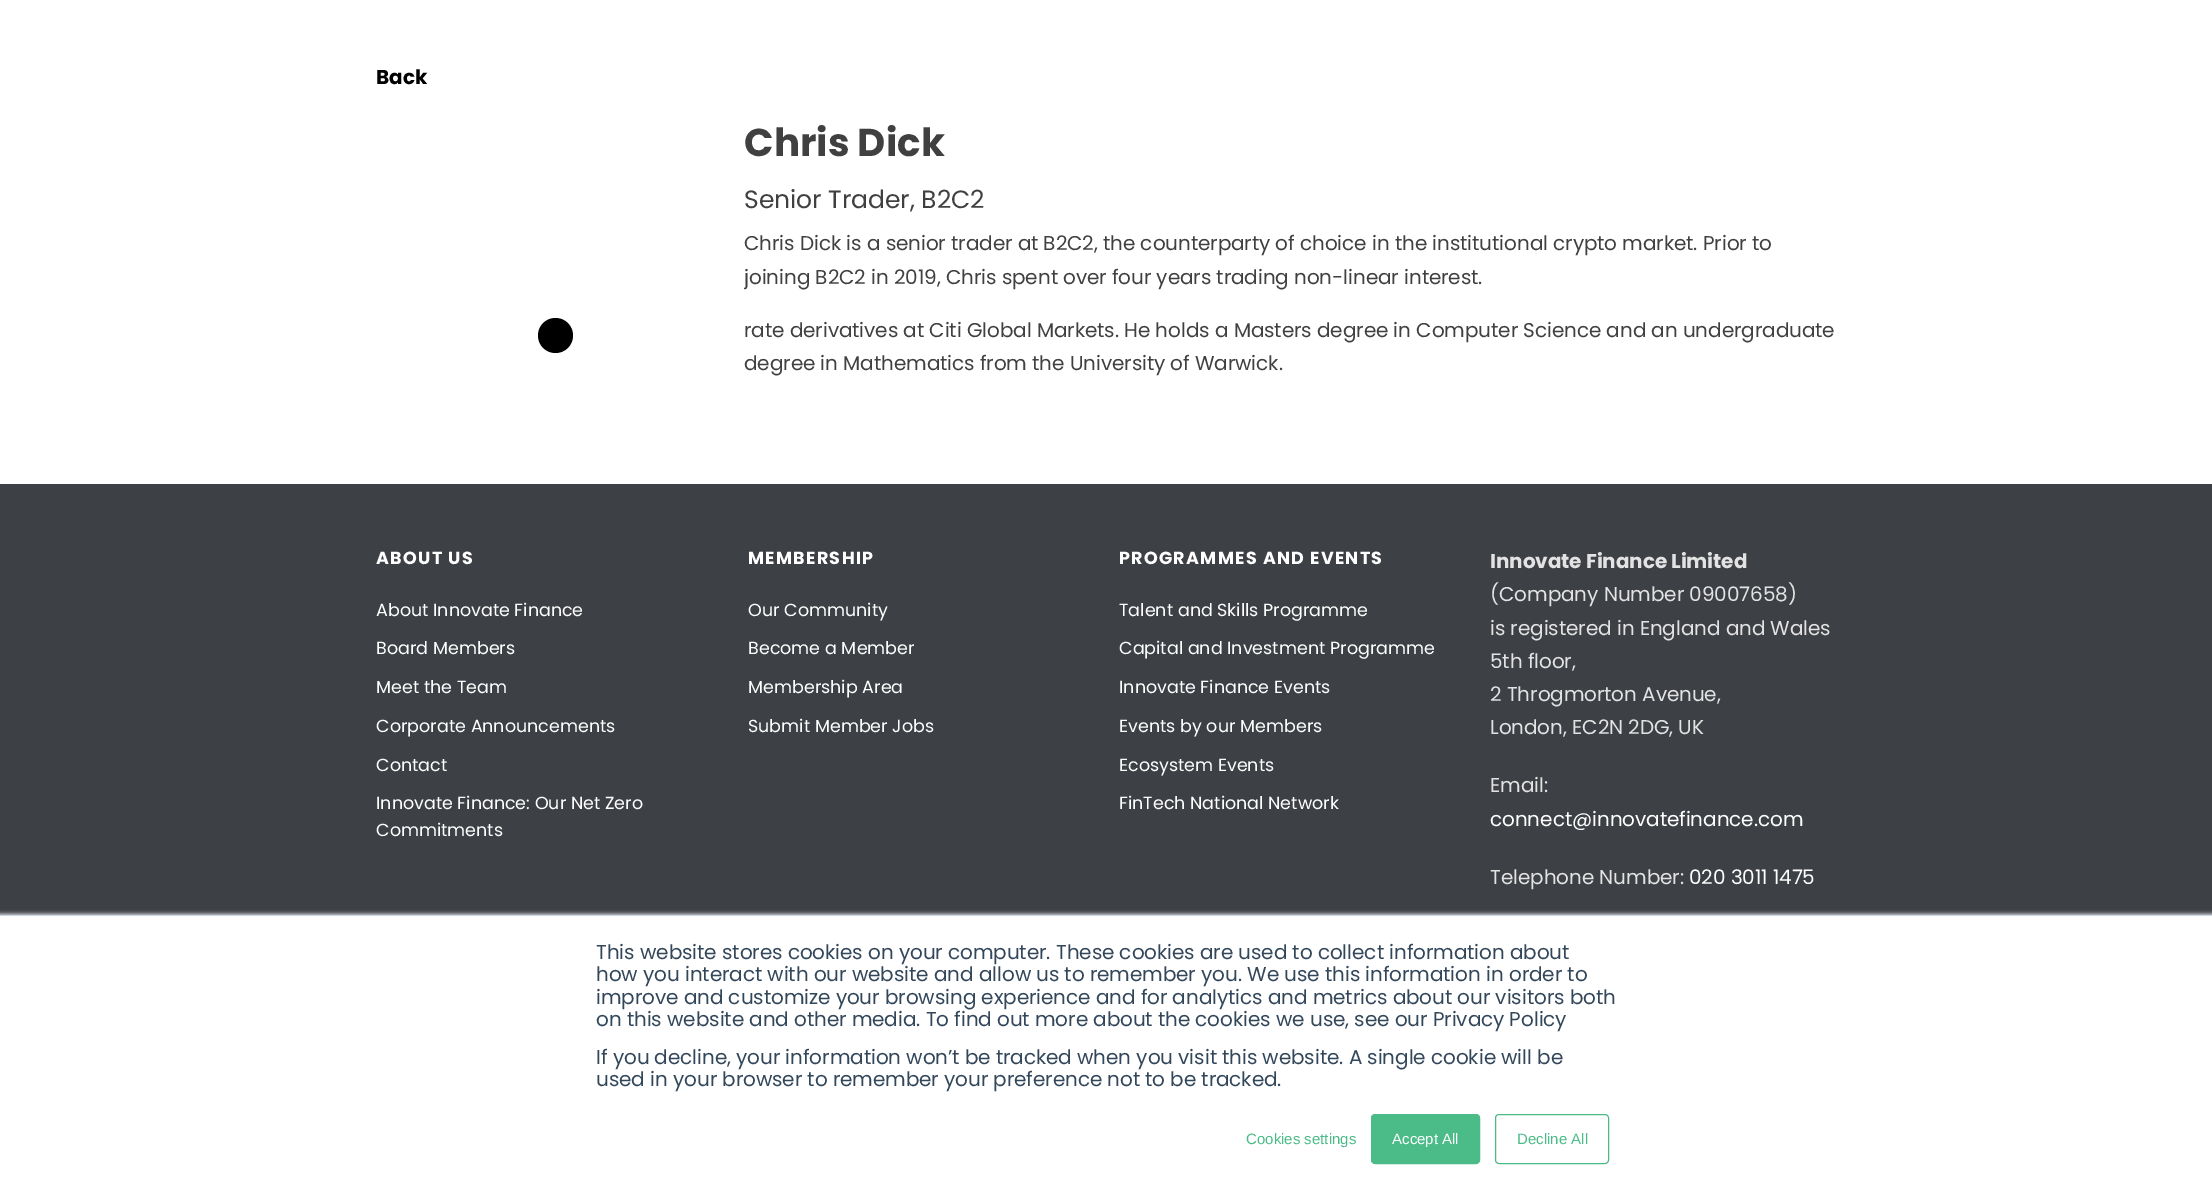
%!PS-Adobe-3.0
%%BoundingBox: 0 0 2212 1196
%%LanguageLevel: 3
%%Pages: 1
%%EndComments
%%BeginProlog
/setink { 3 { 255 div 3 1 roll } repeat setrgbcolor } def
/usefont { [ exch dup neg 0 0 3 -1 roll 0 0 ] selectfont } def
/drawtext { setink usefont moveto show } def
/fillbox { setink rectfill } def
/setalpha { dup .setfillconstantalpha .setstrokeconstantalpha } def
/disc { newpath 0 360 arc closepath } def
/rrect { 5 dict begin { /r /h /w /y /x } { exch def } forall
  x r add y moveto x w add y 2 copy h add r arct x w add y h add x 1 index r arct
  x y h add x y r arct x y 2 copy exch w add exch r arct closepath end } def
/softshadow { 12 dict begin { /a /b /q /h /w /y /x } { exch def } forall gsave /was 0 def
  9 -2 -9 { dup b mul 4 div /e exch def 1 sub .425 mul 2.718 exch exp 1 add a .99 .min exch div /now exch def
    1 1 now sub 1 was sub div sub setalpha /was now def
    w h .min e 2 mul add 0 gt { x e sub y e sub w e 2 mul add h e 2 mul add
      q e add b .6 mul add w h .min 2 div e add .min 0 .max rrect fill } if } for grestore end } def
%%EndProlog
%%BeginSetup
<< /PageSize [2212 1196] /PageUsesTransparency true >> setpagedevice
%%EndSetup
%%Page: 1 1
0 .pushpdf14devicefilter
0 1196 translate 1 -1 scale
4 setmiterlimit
0 0 2212 1196 255 255 255 fillbox
(Back) 376 84 /Poppins-Bold 20 0 0 0 drawtext
555.5 335.5 17.5 disc fill
(Chris Dick) 744 156 /Poppins-Bold 38.75 64 64 64 drawtext
(Senior Trader, B2C2) 744 208 /Poppins-Regular 25 64 64 64 drawtext
/Poppins-Regular 20 usefont
744 250 moveto -0.08 0 (Chris Dick is a senior trader at B2C2, the counterparty of choice in the institutional crypto market. Prior to) ashow
gsave
744 228 1092 173 rectclip
744 284 moveto -0.08 0 (joining B2C2 in 2019, Chris spent over four years trading non-linear interest.) ashow
grestore
744 337 moveto -0.08 0 (rate derivatives at Citi Global Markets. He holds a Masters degree in Computer Science and an undergraduate) ashow
744 370 moveto -0.08 0 (degree in Mathematics from the University of Warwick.) ashow
0 484 2212 431 61 64 69 fillbox
/Poppins-Bold 17.5 usefont
255 255 255 setink
376 564 moveto 1.25 0 (ABOUT US) ashow
(About Innovate Finance) 376 616 /Poppins-Regular 17.5 255 255 255 drawtext
(Board Members) 376 654 /Poppins-Regular 17.5 255 255 255 drawtext
(Meet the Team) 376 693 /Poppins-Regular 17.5 255 255 255 drawtext
(Corporate Announcements) 376 732 /Poppins-Regular 17.5 255 255 255 drawtext
(Contact) 376 771 /Poppins-Regular 17.5 255 255 255 drawtext
(Innovate Finance: Our Net Zero) 376 809 /Poppins-Regular 17.5 255 255 255 drawtext
(Commitments) 376 836 /Poppins-Regular 17.5 255 255 255 drawtext
/Poppins-Bold 17.5 usefont
748 564 moveto 1.25 0 (MEMBERSHIP) ashow
(Our Community) 748 616 /Poppins-Regular 17.5 255 255 255 drawtext
(Become a Member) 748 654 /Poppins-Regular 17.5 255 255 255 drawtext
(Membership Area) 748 693 /Poppins-Regular 17.5 255 255 255 drawtext
(Submit Member Jobs) 748 732 /Poppins-Regular 17.5 255 255 255 drawtext
/Poppins-Bold 17.5 usefont
1119 564 moveto 1.25 0 (PROGRAMMES AND EVENTS) ashow
(Talent and Skills Programme) 1119 616 /Poppins-Regular 17.5 255 255 255 drawtext
(Capital and Investment Programme) 1119 654 /Poppins-Regular 17.5 255 255 255 drawtext
(Innovate Finance Events) 1119 693 /Poppins-Regular 17.5 255 255 255 drawtext
(Events by our Members) 1119 732 /Poppins-Regular 17.5 255 255 255 drawtext
(Ecosystem Events) 1119 771 /Poppins-Regular 17.5 255 255 255 drawtext
(FinTech National Network) 1119 809 /Poppins-Regular 17.5 255 255 255 drawtext
/Poppins-Bold 20 usefont
227 227 227 setink
1490 568 moveto -0.08 0 (Innovate Finance Limited) ashow
/Poppins-Regular 20 usefont
1490 601 moveto -0.08 0 (\(Company Number 09007658\)) ashow
1490 635 moveto -0.08 0 (is registered in England and Wales) ashow
1490 668 moveto -0.08 0 (5th floor,) ashow
1490 701 moveto -0.08 0 (2 Throgmorton Avenue,) ashow
1490 734 moveto -0.08 0 (London, EC2N 2DG, UK) ashow
1490 792 moveto -0.08 0 (Email:) ashow
255 255 255 setink
1490 826 moveto -0.08 0 (connect@innovatefinance.com) ashow
227 227 227 setink
1490 884 moveto -0.08 0 (Telephone Number:) ashow
255 255 255 setink
1689 884 moveto -0.08 0 (020 3011 1475) ashow
234 240 246 setink
0 914 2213 281 0 2 1 softshadow
0 916 2212 280 255 255 255 fillbox
0 915 2212 1 203 214 226 fillbox
51 71 91 setink
596 959 moveto -0.08 0 (This website stores cookies on your computer. These cookies are used to collect information about) ashow
596 981 moveto -0.08 0 (how you interact with our website and allow us to remember you. We use this information in order to) ashow
596 1004 moveto -0.08 0 (improve and customize your browsing experience and for analytics and metrics about our visitors both) ashow
596 1026 moveto -0.08 0 (on this website and other media. To find out more about the cookies we use, see our Privacy Policy) ashow
596 1064 moveto -0.08 0 (If you decline, your information won’t be tracked when you visit this website. A single cookie will be) ashow
596 1086 moveto -0.08 0 (used in your browser to remember your preference not to be tracked.) ashow
(Cookies settings) 1246 1144 /LiberationSans-Regular 15 75 187 135 drawtext
1371.5 1114.5 108 49 3.5 rrect gsave fill grestore
stroke
(Accept All) 1392 1144 /LiberationSans-Regular 15 255 255 255 drawtext
75 187 135 setink
1495.5 1114.5 113 49 3.5 rrect stroke
(Decline All) 1517 1144 /LiberationSans-Regular 15 75 187 135 drawtext
.poppdf14devicefilter showpage
%%EOF
